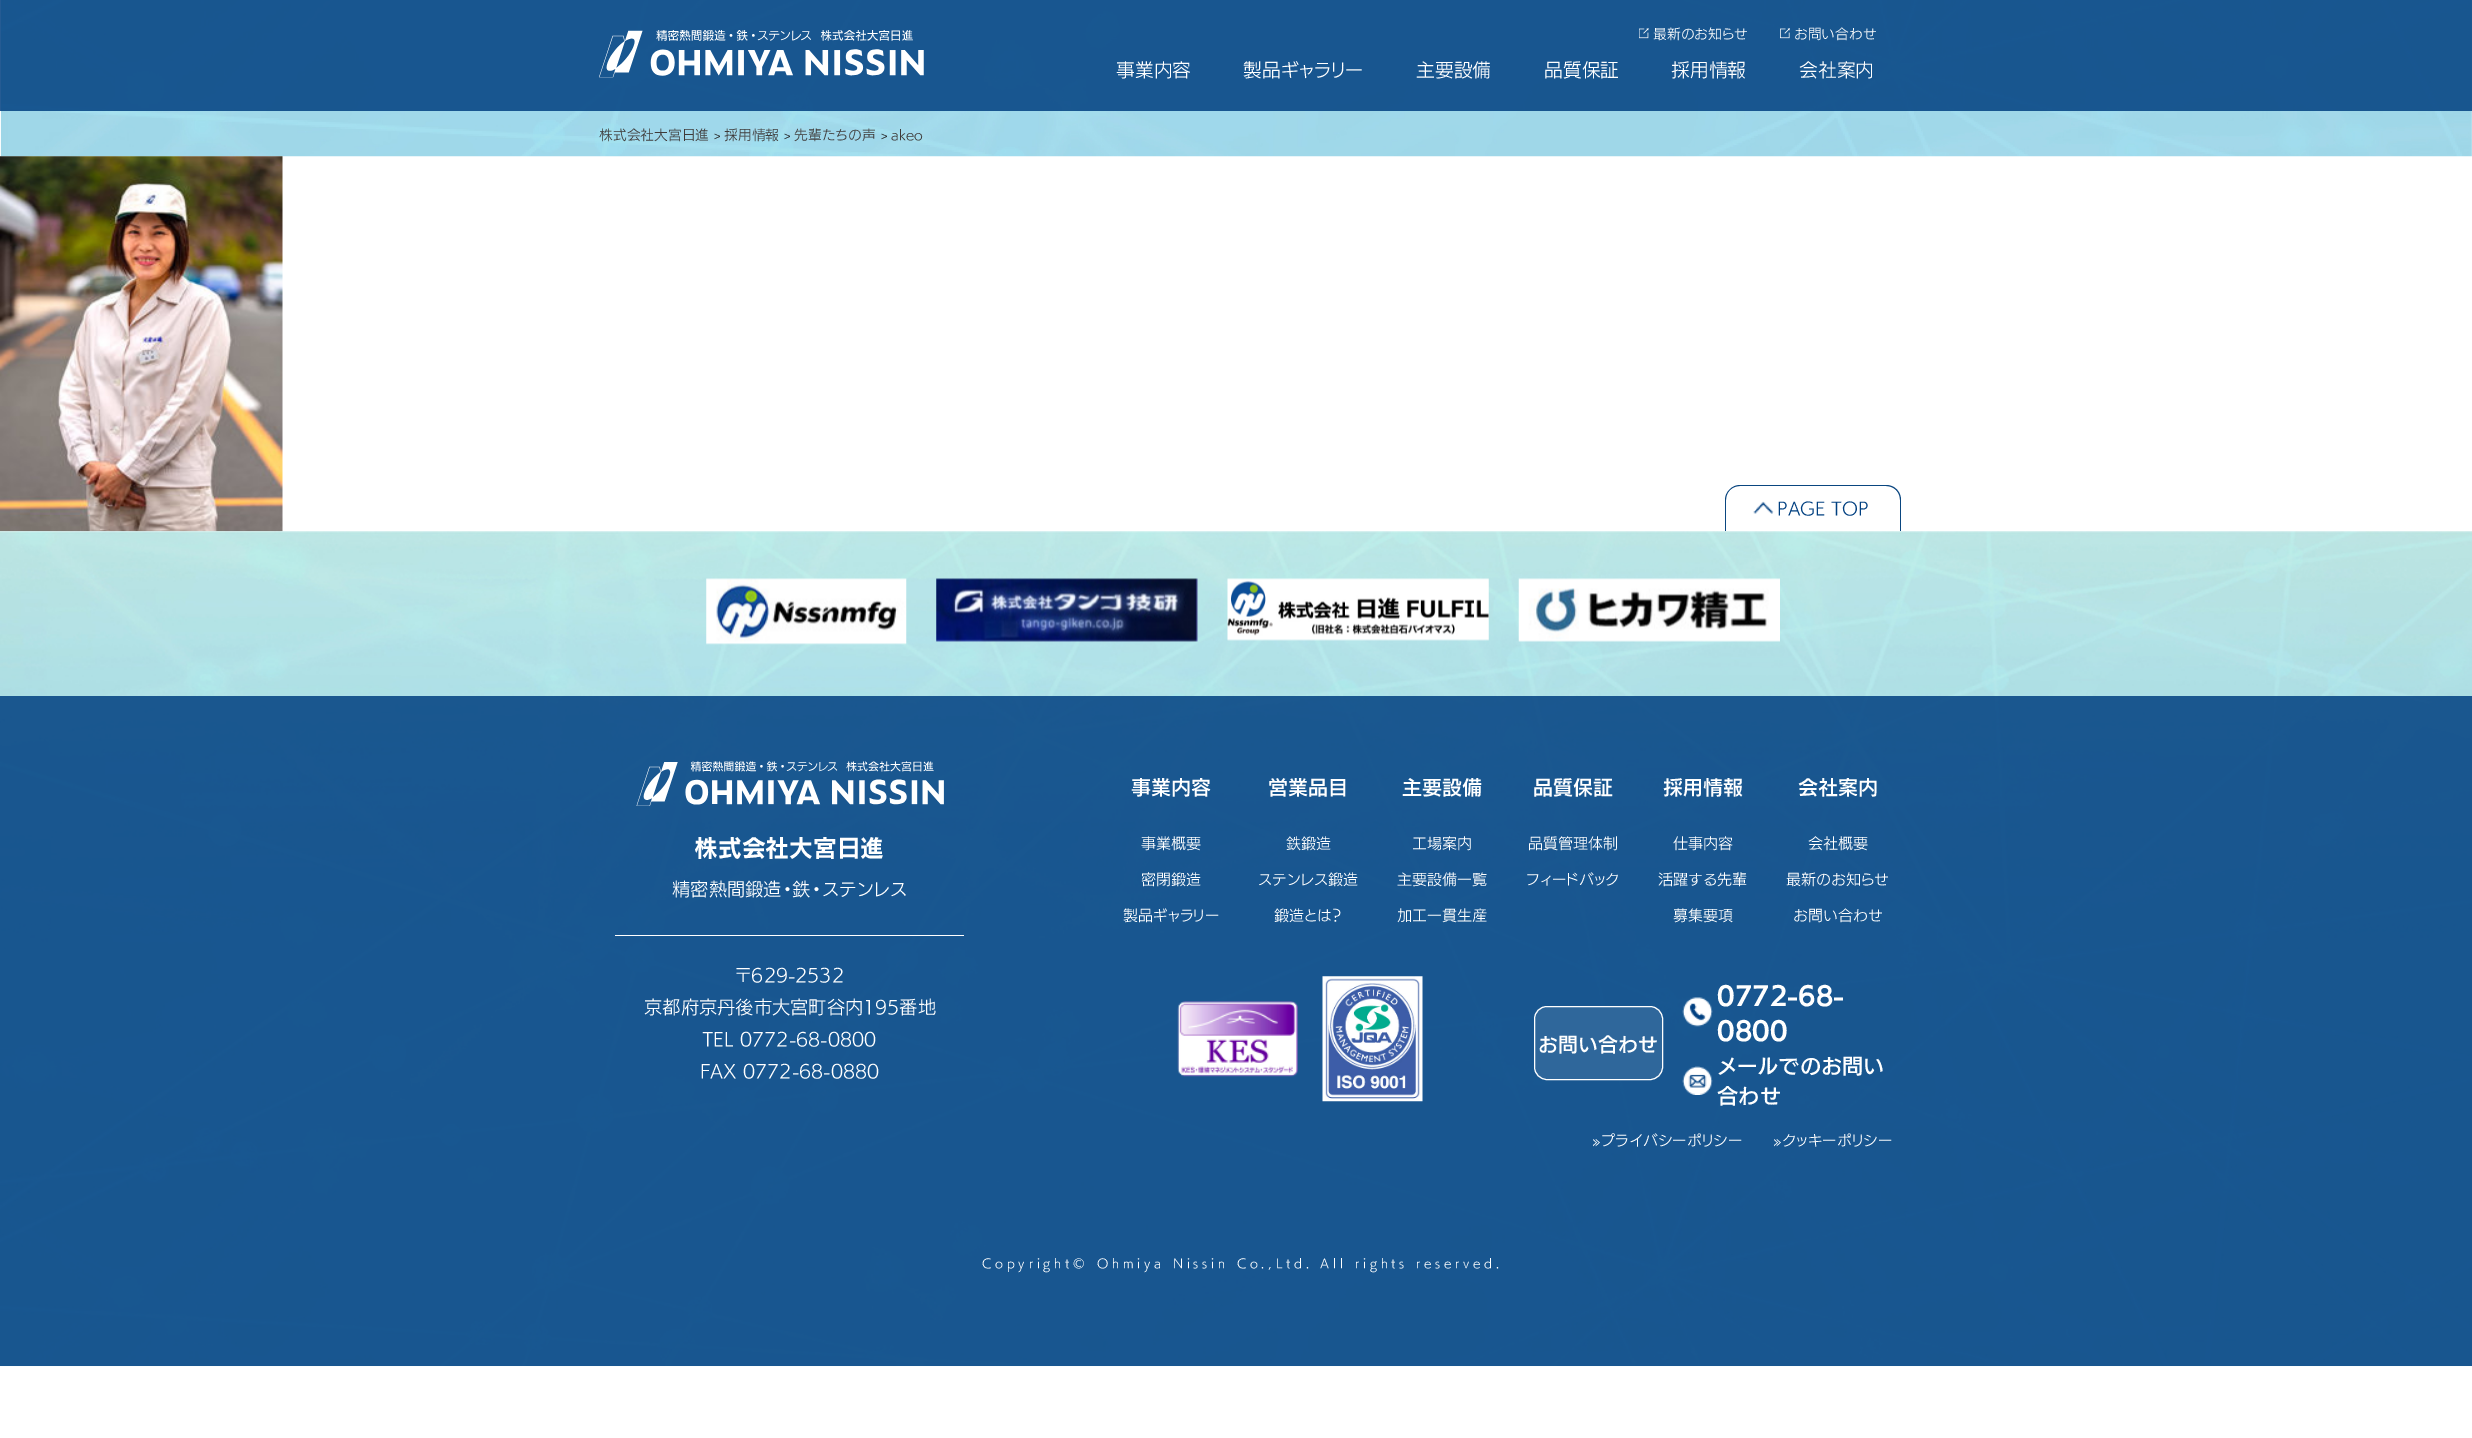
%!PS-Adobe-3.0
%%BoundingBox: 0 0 2472 1438
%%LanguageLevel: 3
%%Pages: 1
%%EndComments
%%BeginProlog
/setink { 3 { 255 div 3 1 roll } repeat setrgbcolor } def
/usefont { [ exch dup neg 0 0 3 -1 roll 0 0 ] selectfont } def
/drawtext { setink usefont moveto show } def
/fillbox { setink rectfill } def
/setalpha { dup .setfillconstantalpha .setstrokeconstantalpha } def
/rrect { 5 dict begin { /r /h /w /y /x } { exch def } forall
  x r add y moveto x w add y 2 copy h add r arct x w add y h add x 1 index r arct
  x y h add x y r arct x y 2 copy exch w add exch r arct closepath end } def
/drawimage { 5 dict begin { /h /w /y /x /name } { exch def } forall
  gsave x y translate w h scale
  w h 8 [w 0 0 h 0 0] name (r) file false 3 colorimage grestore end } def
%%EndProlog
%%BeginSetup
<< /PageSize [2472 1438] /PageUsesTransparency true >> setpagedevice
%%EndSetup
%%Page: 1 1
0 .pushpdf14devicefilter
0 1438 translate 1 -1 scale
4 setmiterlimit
0 0 2472 1438 255 255 255 fillbox
(assets/img4.rgb) 0 0 2472 157 drawimage
0.85 setalpha
0 0 2472 111 0 63 128 fillbox
1 setalpha
(assets/img1.rgb) 599 30 325 48 drawimage
(assets/img2.rgb) 1639 28 10 11 drawimage
(最新のお知らせ) 1653 39 /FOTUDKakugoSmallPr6-Regular 13.75 255 255 255 drawtext
(assets/img3.rgb) 1780 28 10 11 drawimage
(お問い合わせ) 1794 39 /FOTUDKakugoSmallPr6-Regular 13.75 255 255 255 drawtext
(事業内容) 1116 77 /FOTUDKakugoSmallPr6-Regular 18.75 255 255 255 drawtext
(製品ギャラリー) 1243 77 /FOTUDKakugoSmallPr6-Regular 18.75 255 255 255 drawtext
(主要設備) 1416 77 /FOTUDKakugoSmallPr6-Regular 18.75 255 255 255 drawtext
(品質保証) 1544 77 /FOTUDKakugoSmallPr6-Regular 18.75 255 255 255 drawtext
(採用情報) 1671 77 /FOTUDKakugoSmallPr6-Regular 18.75 255 255 255 drawtext
(会社案内) 1799 77 /FOTUDKakugoSmallPr6-Regular 18.75 255 255 255 drawtext
(株式会社大宮日進) 599 140 /FOTUDKakugoSmallPr6-Regular 13.75 62 58 57 drawtext
(>) 714 140 /LiberationSans-Regular 11 34 34 34 drawtext
(採用情報) 724 140 /FOTUDKakugoSmallPr6-Regular 13.75 62 58 57 drawtext
(>) 784 140 /LiberationSans-Regular 11 34 34 34 drawtext
(先輩たちの声) 794 140 /FOTUDKakugoSmallPr6-Regular 13.75 62 58 57 drawtext
(>) 881 140 /LiberationSans-Regular 11 34 34 34 drawtext
(akeo) 891 140 /FOTUDKakugoSmallPr6-Regular 13.75 62 58 57 drawtext
(assets/img5.rgb) 0 156 283 376 drawimage
(assets/img6.rgb) 0 531 2472 836 drawimage
(assets/img7.rgb) 1753 501 21 13 drawimage
10 70 128 setink
1740 485 moveto 1886 485 lineto 1895 485 1901 492 1901 500 curveto 1901 531 lineto 1725 531 lineto 1725 500 lineto 1725 492 1732 485 1740 485 curveto closepath 1740 486 moveto 1886 486 lineto 1894 486 1900 492 1900 500 curveto 1900 531 lineto 1726 531 lineto 1726 500 lineto 1726 492 1732 486 1740 486 curveto closepath eofill
(PAGE TOP) 1777 515 /FOTUDKakugoSmallPr6-Regular 17.5 0 63 128 drawtext
(assets/img8.rgb) 706 578 201 67 drawimage
(assets/img9.rgb) 936 578 262 64 drawimage
(assets/img10.rgb) 1227 578 262 63 drawimage
(assets/img11.rgb) 1518 578 262 64 drawimage
0.85 setalpha
0 696 2472 670 0 63 128 fillbox
1 setalpha
(assets/img12.rgb) 636 761 308 45 drawimage
(株式会社大宮日進) 694 857 /FOTUDKakugoSmallPr6-Bold 23.75 255 255 255 drawtext
615 935 349 1 255 255 255 fillbox
(精密熱間鍛造・鉄・ステンレス) 672 896 /FOTUDKakugoSmallPr6-Regular 18.25 255 255 255 drawtext
(〒629-2532) 735 982 /FOTUDKakugoSmallPr6-Regular 18.25 255 255 255 drawtext
(京都府京丹後市大宮町谷内195番地) 644 1014 /FOTUDKakugoSmallPr6-Regular 18.25 255 255 255 drawtext
(TEL 0772-68-0800) 702 1046 /FOTUDKakugoSmallPr6-Regular 18.25 255 255 255 drawtext
(FAX 0772-68-0880) 700 1078 /FOTUDKakugoSmallPr6-Regular 18.25 255 255 255 drawtext
(事業内容) 1131 795 /FOTUDKakugoSmallPr6-SemiBold 20 255 255 255 drawtext
(事業概要) 1141 849 /FOTUDKakugoSmallPr6-Regular 15 255 255 255 drawtext
(密閉鍛造) 1141 885 /FOTUDKakugoSmallPr6-Regular 15 255 255 255 drawtext
(製品ギャラリー) 1123 921 /FOTUDKakugoSmallPr6-Regular 15 255 255 255 drawtext
(営業品目) 1268 795 /FOTUDKakugoSmallPr6-SemiBold 20 255 255 255 drawtext
(鉄鍛造) 1286 849 /FOTUDKakugoSmallPr6-Regular 15 255 255 255 drawtext
(ステンレス鍛造) 1258 885 /FOTUDKakugoSmallPr6-Regular 15 255 255 255 drawtext
(鍛造とは？) 1274 921 /FOTUDKakugoSmallPr6-Regular 15 255 255 255 drawtext
(主要設備) 1402 795 /FOTUDKakugoSmallPr6-SemiBold 20 255 255 255 drawtext
(工場案内) 1412 849 /FOTUDKakugoSmallPr6-Regular 15 255 255 255 drawtext
(主要設備一覧) 1397 885 /FOTUDKakugoSmallPr6-Regular 15 255 255 255 drawtext
(加工一貫生産) 1397 921 /FOTUDKakugoSmallPr6-Regular 15 255 255 255 drawtext
(品質保証) 1533 795 /FOTUDKakugoSmallPr6-SemiBold 20 255 255 255 drawtext
(品質管理体制) 1528 849 /FOTUDKakugoSmallPr6-Regular 15 255 255 255 drawtext
(フィードバック) 1526 885 /FOTUDKakugoSmallPr6-Regular 15 255 255 255 drawtext
(採用情報) 1663 795 /FOTUDKakugoSmallPr6-SemiBold 20 255 255 255 drawtext
(仕事内容) 1673 849 /FOTUDKakugoSmallPr6-Regular 15 255 255 255 drawtext
(活躍する先輩) 1658 885 /FOTUDKakugoSmallPr6-Regular 15 255 255 255 drawtext
(募集要項) 1673 921 /FOTUDKakugoSmallPr6-Regular 15 255 255 255 drawtext
(会社案内) 1798 795 /FOTUDKakugoSmallPr6-SemiBold 20 255 255 255 drawtext
(会社概要) 1808 849 /FOTUDKakugoSmallPr6-Regular 15 255 255 255 drawtext
(最新のお知らせ) 1786 885 /FOTUDKakugoSmallPr6-Regular 15 255 255 255 drawtext
(お問い合わせ) 1793 921 /FOTUDKakugoSmallPr6-Regular 15 255 255 255 drawtext
(assets/img13.rgb) 1177 1001 121 76 drawimage
(assets/img14.rgb) 1322 976 101 126 drawimage
47 103 155 setink
1534.5 1006.5 128 73 12.5 rrect gsave fill grestore
255 255 255 setink
stroke
(お問い合わせ) 1538 1052 /FOTUDKakugoSmallPr6-SemiBold 20 255 255 255 drawtext
(assets/img15.rgb) 1682 997 31 30 drawimage
(0772-68-) 1717 1005 /FOTUDKakugoSmallPr6-Bold 25 255 255 255 drawtext
(0800) 1717 1040 /FOTUDKakugoSmallPr6-Bold 25 255 255 255 drawtext
(assets/img16.rgb) 1682 1066 31 29 drawimage
(メールでのお問い) 1717 1074 /FOTUDKakugoSmallPr6-SemiBold 21.25 255 255 255 drawtext
(合わせ) 1717 1104 /FOTUDKakugoSmallPr6-SemiBold 21.25 255 255 255 drawtext
(»プライバシーポリシー) 1592 1146 /FOTUDKakugoSmallPr6-Regular 15 255 255 255 drawtext
(»クッキーポリシー) 1773 1146 /FOTUDKakugoSmallPr6-Regular 15 255 255 255 drawtext
/FOTUDKakugoSmallPr6-Regular 12.5 usefont
982 1268 moveto 3.75 0 (Copyright© Ohmiya Nissin Co.,Ltd. All rights reserved.) ashow
.poppdf14devicefilter showpage
%%EOF
